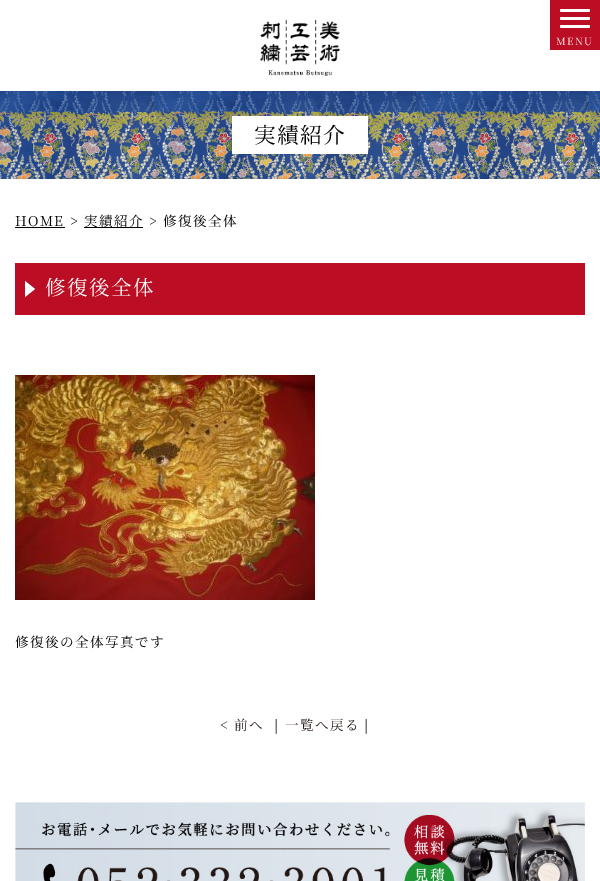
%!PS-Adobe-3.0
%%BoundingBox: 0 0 600 881
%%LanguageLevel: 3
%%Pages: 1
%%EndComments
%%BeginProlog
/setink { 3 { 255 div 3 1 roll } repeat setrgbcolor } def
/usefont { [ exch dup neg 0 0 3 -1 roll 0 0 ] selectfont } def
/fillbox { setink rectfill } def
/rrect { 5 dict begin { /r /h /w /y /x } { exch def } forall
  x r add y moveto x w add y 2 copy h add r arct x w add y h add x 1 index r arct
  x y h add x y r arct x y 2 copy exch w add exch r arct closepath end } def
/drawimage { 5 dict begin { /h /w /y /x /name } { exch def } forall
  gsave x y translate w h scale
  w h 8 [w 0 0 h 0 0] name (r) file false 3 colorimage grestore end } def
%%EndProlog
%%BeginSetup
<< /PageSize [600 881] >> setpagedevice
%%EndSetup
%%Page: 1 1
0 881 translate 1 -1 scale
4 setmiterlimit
0 0 600 881 255 255 255 fillbox
(assets/img1.rgb) 260 20 80 56 drawimage
550 0 50 50 187 13 35 fillbox
255 255 255 setink
560 9 30 3 1.5 rrect fill
560 17 30 3 1.5 rrect fill
560 25 30 3 1.5 rrect fill
/NotoSerifJP-Regular 10 usefont
556 45 moveto 1.4 0 (MENU) ashow
(assets/img2.rgb) 0 91 600 88 drawimage
232 116 136 38 255 255 255 fillbox
/NotoSerifJP-Regular 21.75 usefont
0 0 0 setink
254 143 moveto 1.4 0 (実績紹介) ashow
/NotoSerifJP-Regular 13.6 usefont
15 226 moveto 1.4 0 (HOME >) ashow
15 227 50 1 0 0 0 fillbox
84 227 59 1 0 0 0 fillbox
84 226 moveto 1.4 0 (実績紹介 > 修復後全体) ashow
15 263 570 52 187 13 35 fillbox
255 255 255 setink
25 297 moveto 25 281 lineto 35 289 lineto closepath fill
/NotoSerifJP-Regular 20.5 usefont
45 295 moveto 1.4 0 (修復後全体) ashow
(assets/img3.rgb) 15 375 300 225 drawimage
/NotoSerifJP-Regular 13.6 usefont
0 0 0 setink
15 647 moveto 1.4 0 (修復後の全体写真です) ashow
35 24 21 setink
220 730 moveto 1.4 0 (< 前へ) ashow
0 0 0 setink
274 730 moveto 1.4 0 (|) ashow
35 24 21 setink
285 730 moveto 1.4 0 (一覧へ戻る) ashow
0 0 0 setink
364 730 moveto 1.4 0 (|) ashow
(assets/img4.rgb) 15 802 570 79 drawimage
showpage
%%EOF
